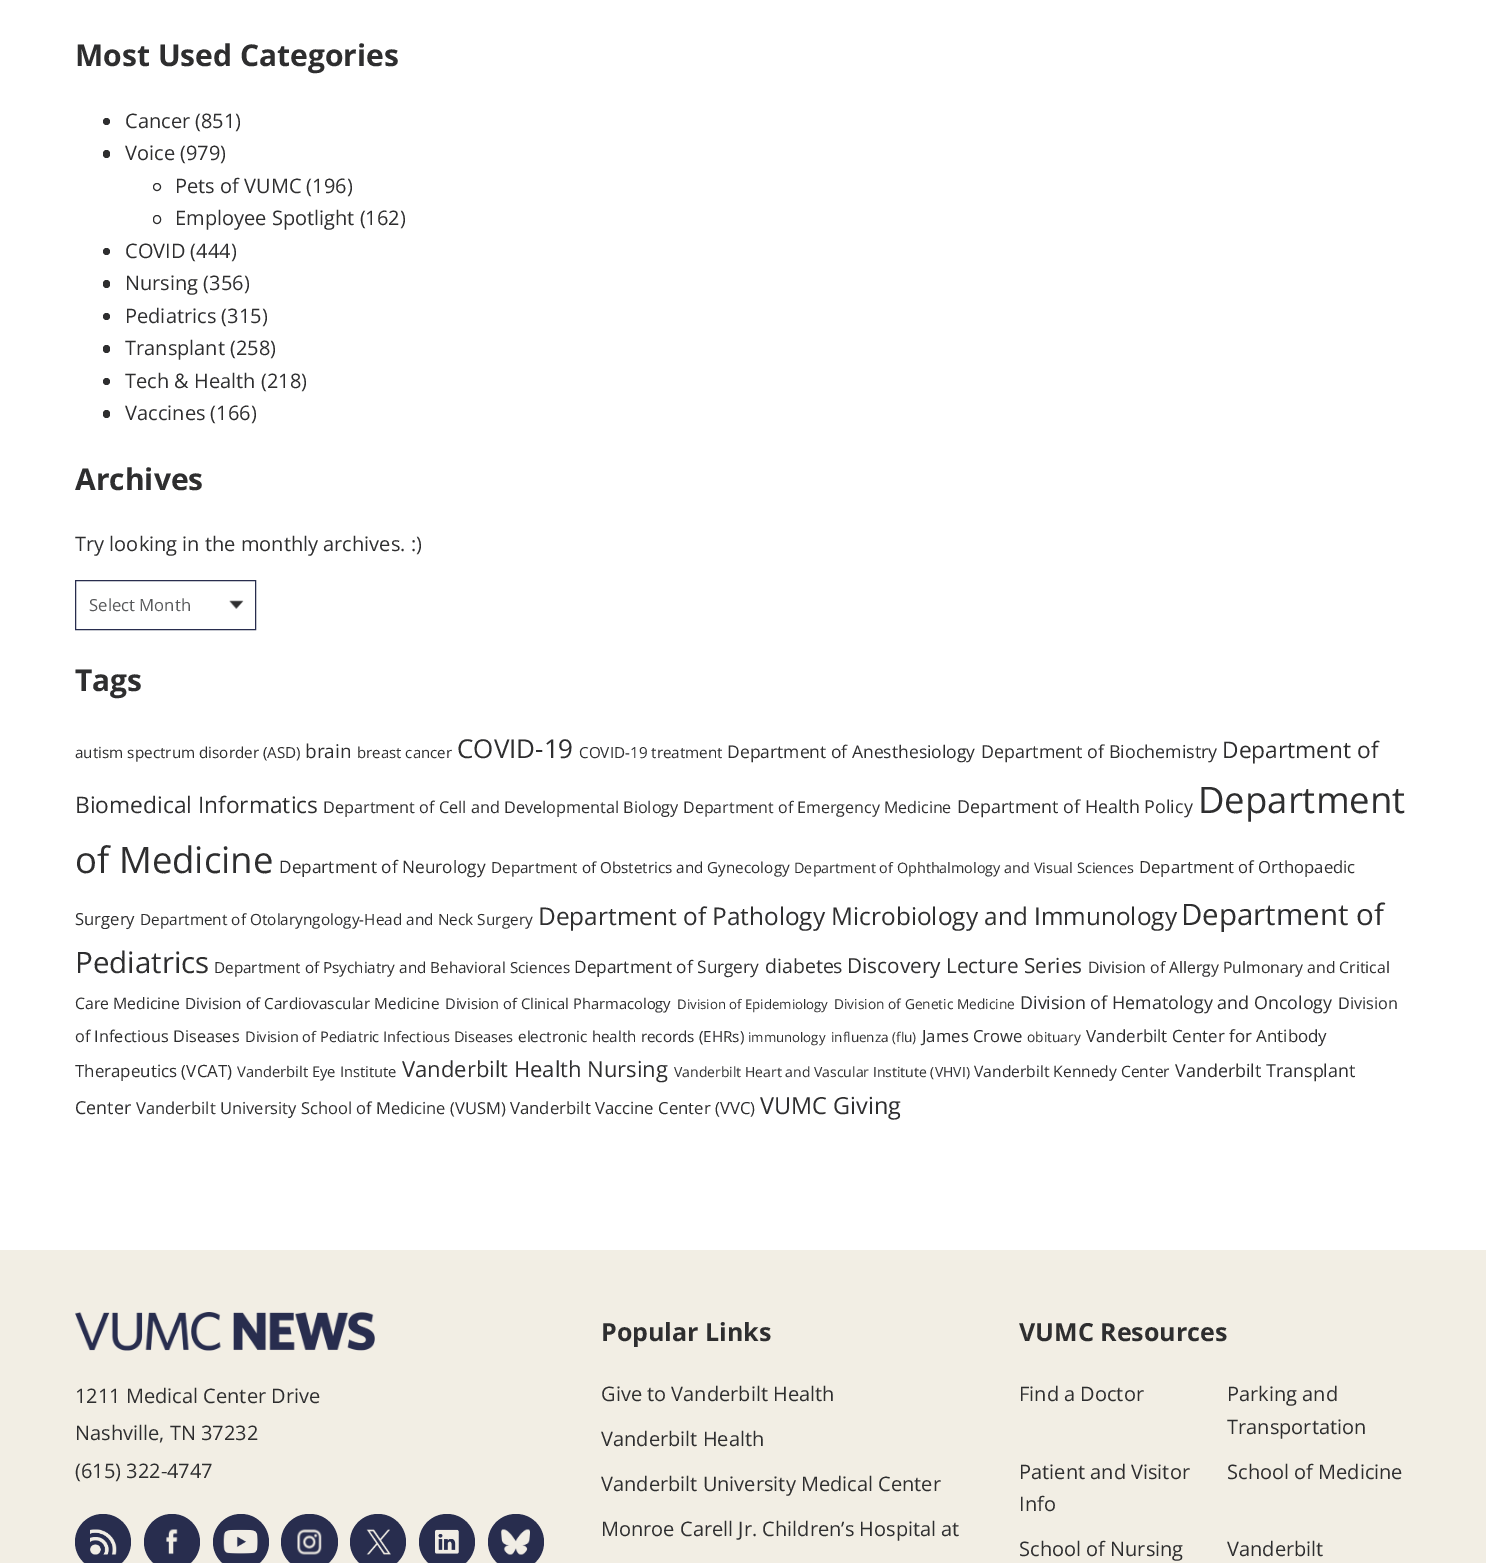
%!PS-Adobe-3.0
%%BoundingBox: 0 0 1486 1563
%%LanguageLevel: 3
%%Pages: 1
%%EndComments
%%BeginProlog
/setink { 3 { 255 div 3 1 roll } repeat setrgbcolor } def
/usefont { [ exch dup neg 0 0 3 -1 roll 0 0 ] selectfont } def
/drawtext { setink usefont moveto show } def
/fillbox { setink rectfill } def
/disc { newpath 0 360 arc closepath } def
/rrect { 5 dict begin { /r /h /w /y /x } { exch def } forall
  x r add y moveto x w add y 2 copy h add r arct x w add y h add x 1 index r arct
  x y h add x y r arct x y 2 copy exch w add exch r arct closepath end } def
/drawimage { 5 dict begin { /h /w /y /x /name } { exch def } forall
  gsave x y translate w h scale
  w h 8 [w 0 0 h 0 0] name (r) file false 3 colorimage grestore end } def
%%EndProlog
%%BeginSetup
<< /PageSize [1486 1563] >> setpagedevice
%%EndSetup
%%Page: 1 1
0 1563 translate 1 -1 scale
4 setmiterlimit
0 0 1486 1563 255 255 255 fillbox
(Most Used Categories) 75 66 /OpenSans-Bold 30 46 46 47 drawtext
106.5 121.5 3.5 disc fill
(Cancer \(851\)) 125 128 /OpenSans-Regular 20 46 46 47 drawtext
103 150 7 8 3.5 rrect fill
(Voice \(979\)) 125 160 /OpenSans-Regular 20 46 46 47 drawtext
157 187 3.5 disc stroke
(Pets of VUMC \(196\)) 175 193 /OpenSans-Regular 20 46 46 47 drawtext
153.5 215.5 7 8 3.5 rrect stroke
(Employee Spotlight \(162\)) 175 225 /OpenSans-Regular 20 46 46 47 drawtext
106.5 251.5 3.5 disc fill
(COVID \(444\)) 125 258 /OpenSans-Regular 20 46 46 47 drawtext
103 280 7 8 3.5 rrect fill
(Nursing \(356\)) 125 290 /OpenSans-Regular 20 46 46 47 drawtext
106.5 316.5 3.5 disc fill
(Pediatrics \(315\)) 125 323 /OpenSans-Regular 20 46 46 47 drawtext
103 345 7 8 3.5 rrect fill
(Transplant \(258\)) 125 355 /OpenSans-Regular 20 46 46 47 drawtext
106.5 381.5 3.5 disc fill
(Tech & Health \(218\)) 125 388 /OpenSans-Regular 20 46 46 47 drawtext
103 410 7 8 3.5 rrect fill
(Vaccines \(166\)) 125 420 /OpenSans-Regular 20 46 46 47 drawtext
(Archives) 75 490 /OpenSans-Bold 30 46 46 47 drawtext
(Try looking in the monthly archives. :\)) 75 551 /OpenSans-Regular 20 46 46 47 drawtext
40 45 78 setink
75.5 580.5 180 49 rectstroke
(Select Month) 89 611 /OpenSans-Regular 16.7 88 89 91 drawtext
(assets/img1.rgb) 229 600 15 9 drawimage
(Tags) 75 691 /OpenSans-Bold 30 46 46 47 drawtext
(autism spectrum disorder \(ASD\)) 75 758 /OpenSans-Regular 15.25 46 46 47 drawtext
(brain) 305 758 /OpenSans-Regular 19 46 46 47 drawtext
(breast cancer) 357 758 /OpenSans-Regular 15 46 46 47 drawtext
(COVID-19) 457 758 /OpenSans-Regular 26 46 46 47 drawtext
(COVID-19 treatment) 579 758 /OpenSans-Regular 15.25 46 46 47 drawtext
(Department of Anesthesiology) 727 758 /OpenSans-Regular 17.5 46 46 47 drawtext
(Department of Biochemistry) 981 758 /OpenSans-Regular 17.9 46 46 47 drawtext
(Department of) 1222 758 /OpenSans-Regular 22.75 46 46 47 drawtext
(Biomedical Informatics) 75 813 /OpenSans-Regular 22.75 46 46 47 drawtext
(Department of Cell and Developmental Biology) 323 813 /OpenSans-Regular 16.25 46 46 47 drawtext
(Department of Emergency Medicine) 683 813 /OpenSans-Regular 16 46 46 47 drawtext
(Department of Health Policy) 957 813 /OpenSans-Regular 17.9 46 46 47 drawtext
(Department) 1198 813 /OpenSans-Regular 36.5 46 46 47 drawtext
(of Medicine) 75 873 /OpenSans-Regular 36.5 46 46 47 drawtext
(Department of Neurology) 279 873 /OpenSans-Regular 17.25 46 46 47 drawtext
(Department of Obstetrics and Gynecology) 491 873 /OpenSans-Regular 15.25 46 46 47 drawtext
(Department of Ophthalmology and Visual Sciences) 794 873 /OpenSans-Regular 14.4 46 46 47 drawtext
(Department of Orthopaedic) 1139 873 /OpenSans-Regular 16.7 46 46 47 drawtext
(Surgery) 75 925 /OpenSans-Regular 16.7 46 46 47 drawtext
(Department of Otolaryngology-Head and Neck Surgery) 140 925 /OpenSans-Regular 15.4 46 46 47 drawtext
(Department of Pathology Microbiology and Immunology) 538 925 /OpenSans-Regular 24.4 46 46 47 drawtext
(Department of) 1181 925 /OpenSans-Regular 29.5 46 46 47 drawtext
(Pediatrics) 75 973 /OpenSans-Regular 29.5 46 46 47 drawtext
(Department of Psychiatry and Behavioral Sciences) 214 973 /OpenSans-Regular 15.25 46 46 47 drawtext
(Department of Surgery) 574 973 /OpenSans-Regular 17.25 46 46 47 drawtext
(diabetes) 765 973 /OpenSans-Regular 19.5 46 46 47 drawtext
(Discovery Lecture Series) 847 973 /OpenSans-Regular 20.75 46 46 47 drawtext
(Division of Allergy Pulmonary and Critical) 1088 973 /OpenSans-Regular 15.8 46 46 47 drawtext
(Care Medicine) 75 1009 /OpenSans-Regular 15.8 46 46 47 drawtext
(Division of Cardiovascular Medicine) 185 1009 /OpenSans-Regular 15.4 46 46 47 drawtext
(Division of Clinical Pharmacology) 445 1009 /OpenSans-Regular 14.75 46 46 47 drawtext
(Division of Epidemiology) 677 1009 /OpenSans-Regular 13.25 46 46 47 drawtext
(Division of Genetic Medicine) 834 1009 /OpenSans-Regular 13.75 46 46 47 drawtext
(Division of Hematology and Oncology) 1020 1009 /OpenSans-Regular 17.9 46 46 47 drawtext
(Division) 1338 1009 /OpenSans-Regular 16.25 46 46 47 drawtext
(of Infectious Diseases) 75 1042 /OpenSans-Regular 16.25 46 46 47 drawtext
(Division of Pediatric Infectious Diseases) 245 1042 /OpenSans-Regular 14.6 46 46 47 drawtext
(electronic health records \(EHRs\)) 518 1042 /OpenSans-Regular 15.25 46 46 47 drawtext
(immunology) 748 1042 /OpenSans-Regular 13.25 46 46 47 drawtext
(influenza \(flu\)) 831 1042 /OpenSans-Regular 13.5 46 46 47 drawtext
(James Crowe) 922 1042 /OpenSans-Regular 16.7 46 46 47 drawtext
(obituary) 1027 1042 /OpenSans-Regular 13.75 46 46 47 drawtext
(Vanderbilt Center for Antibody) 1086 1042 /OpenSans-Regular 16.9 46 46 47 drawtext
(Therapeutics \(VCAT\)) 75 1077 /OpenSans-Regular 16.9 46 46 47 drawtext
(Vanderbilt Eye Institute) 237 1077 /OpenSans-Regular 14.75 46 46 47 drawtext
(Vanderbilt Health Nursing) 402 1077 /OpenSans-Regular 22 46 46 47 drawtext
(Vanderbilt Heart and Vascular Institute \(VHVI\)) 674 1077 /OpenSans-Regular 14 46 46 47 drawtext
(Vanderbilt Kennedy Center) 974 1077 /OpenSans-Regular 15.6 46 46 47 drawtext
(Vanderbilt Transplant) 1175 1077 /OpenSans-Regular 17.9 46 46 47 drawtext
(Center) 75 1114 /OpenSans-Regular 17.9 46 46 47 drawtext
(Vanderbilt University School of Medicine \(VUSM\)) 136 1114 /OpenSans-Regular 16.5 46 46 47 drawtext
(Vanderbilt Vaccine Center \(VVC\)) 510 1114 /OpenSans-Regular 16.7 46 46 47 drawtext
(VUMC Giving) 760 1114 /OpenSans-Regular 23.5 46 46 47 drawtext
0 1250 1486 313 242 238 228 fillbox
(assets/img2.rgb) 75 1312 300 39 drawimage
(1211 Medical Center Drive) 75 1403 /OpenSans-Regular 20 46 46 47 drawtext
(Nashville, TN 37232) 75 1440 /OpenSans-Regular 20 46 46 47 drawtext
(\(615\) 322-4747) 75 1478 /OpenSans-Regular 20 46 46 47 drawtext
40 45 78 setink
103 1542 28 disc fill
(assets/img3.rgb) 90 1529 27 26 drawimage
172 1542 28 disc fill
(assets/img4.rgb) 166 1529 12 26 drawimage
241 1542 28 disc fill
(assets/img5.rgb) 223 1529 35 25 drawimage
281 1514 57 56 28 rrect fill
(assets/img6.rgb) 297 1529 25 26 drawimage
378 1542 28 disc fill
(assets/img7.rgb) 366 1529 25 26 drawimage
447 1542 28 disc fill
(assets/img8.rgb) 435 1529 24 25 drawimage
516 1542 28 disc fill
(assets/img9.rgb) 501 1529 29 26 drawimage
(Popular Links) 601 1341 /OpenSans-Bold 25 46 46 47 drawtext
(Give to Vanderbilt Health) 601 1401 /OpenSans-Regular 20 46 46 47 drawtext
(Vanderbilt Health) 601 1446 /OpenSans-Regular 20 46 46 47 drawtext
(Vanderbilt University Medical Center) 601 1491 /OpenSans-Regular 20 46 46 47 drawtext
(Monroe Carell Jr. Children’s Hospital at) 601 1536 /OpenSans-Regular 20 46 46 47 drawtext
(VUMC Resources) 1019 1341 /OpenSans-Bold 25 46 46 47 drawtext
(Find a Doctor) 1019 1401 /OpenSans-Regular 20 46 46 47 drawtext
(Parking and) 1227 1401 /OpenSans-Regular 20 46 46 47 drawtext
(Transportation) 1227 1434 /OpenSans-Regular 20 46 46 47 drawtext
(Patient and Visitor) 1019 1479 /OpenSans-Regular 20 46 46 47 drawtext
(Info) 1019 1511 /OpenSans-Regular 20 46 46 47 drawtext
(School of Medicine) 1227 1479 /OpenSans-Regular 20 46 46 47 drawtext
(School of Nursing) 1019 1556 /OpenSans-Regular 20 46 46 47 drawtext
(Vanderbilt) 1227 1556 /OpenSans-Regular 20 46 46 47 drawtext
showpage
%%EOF
